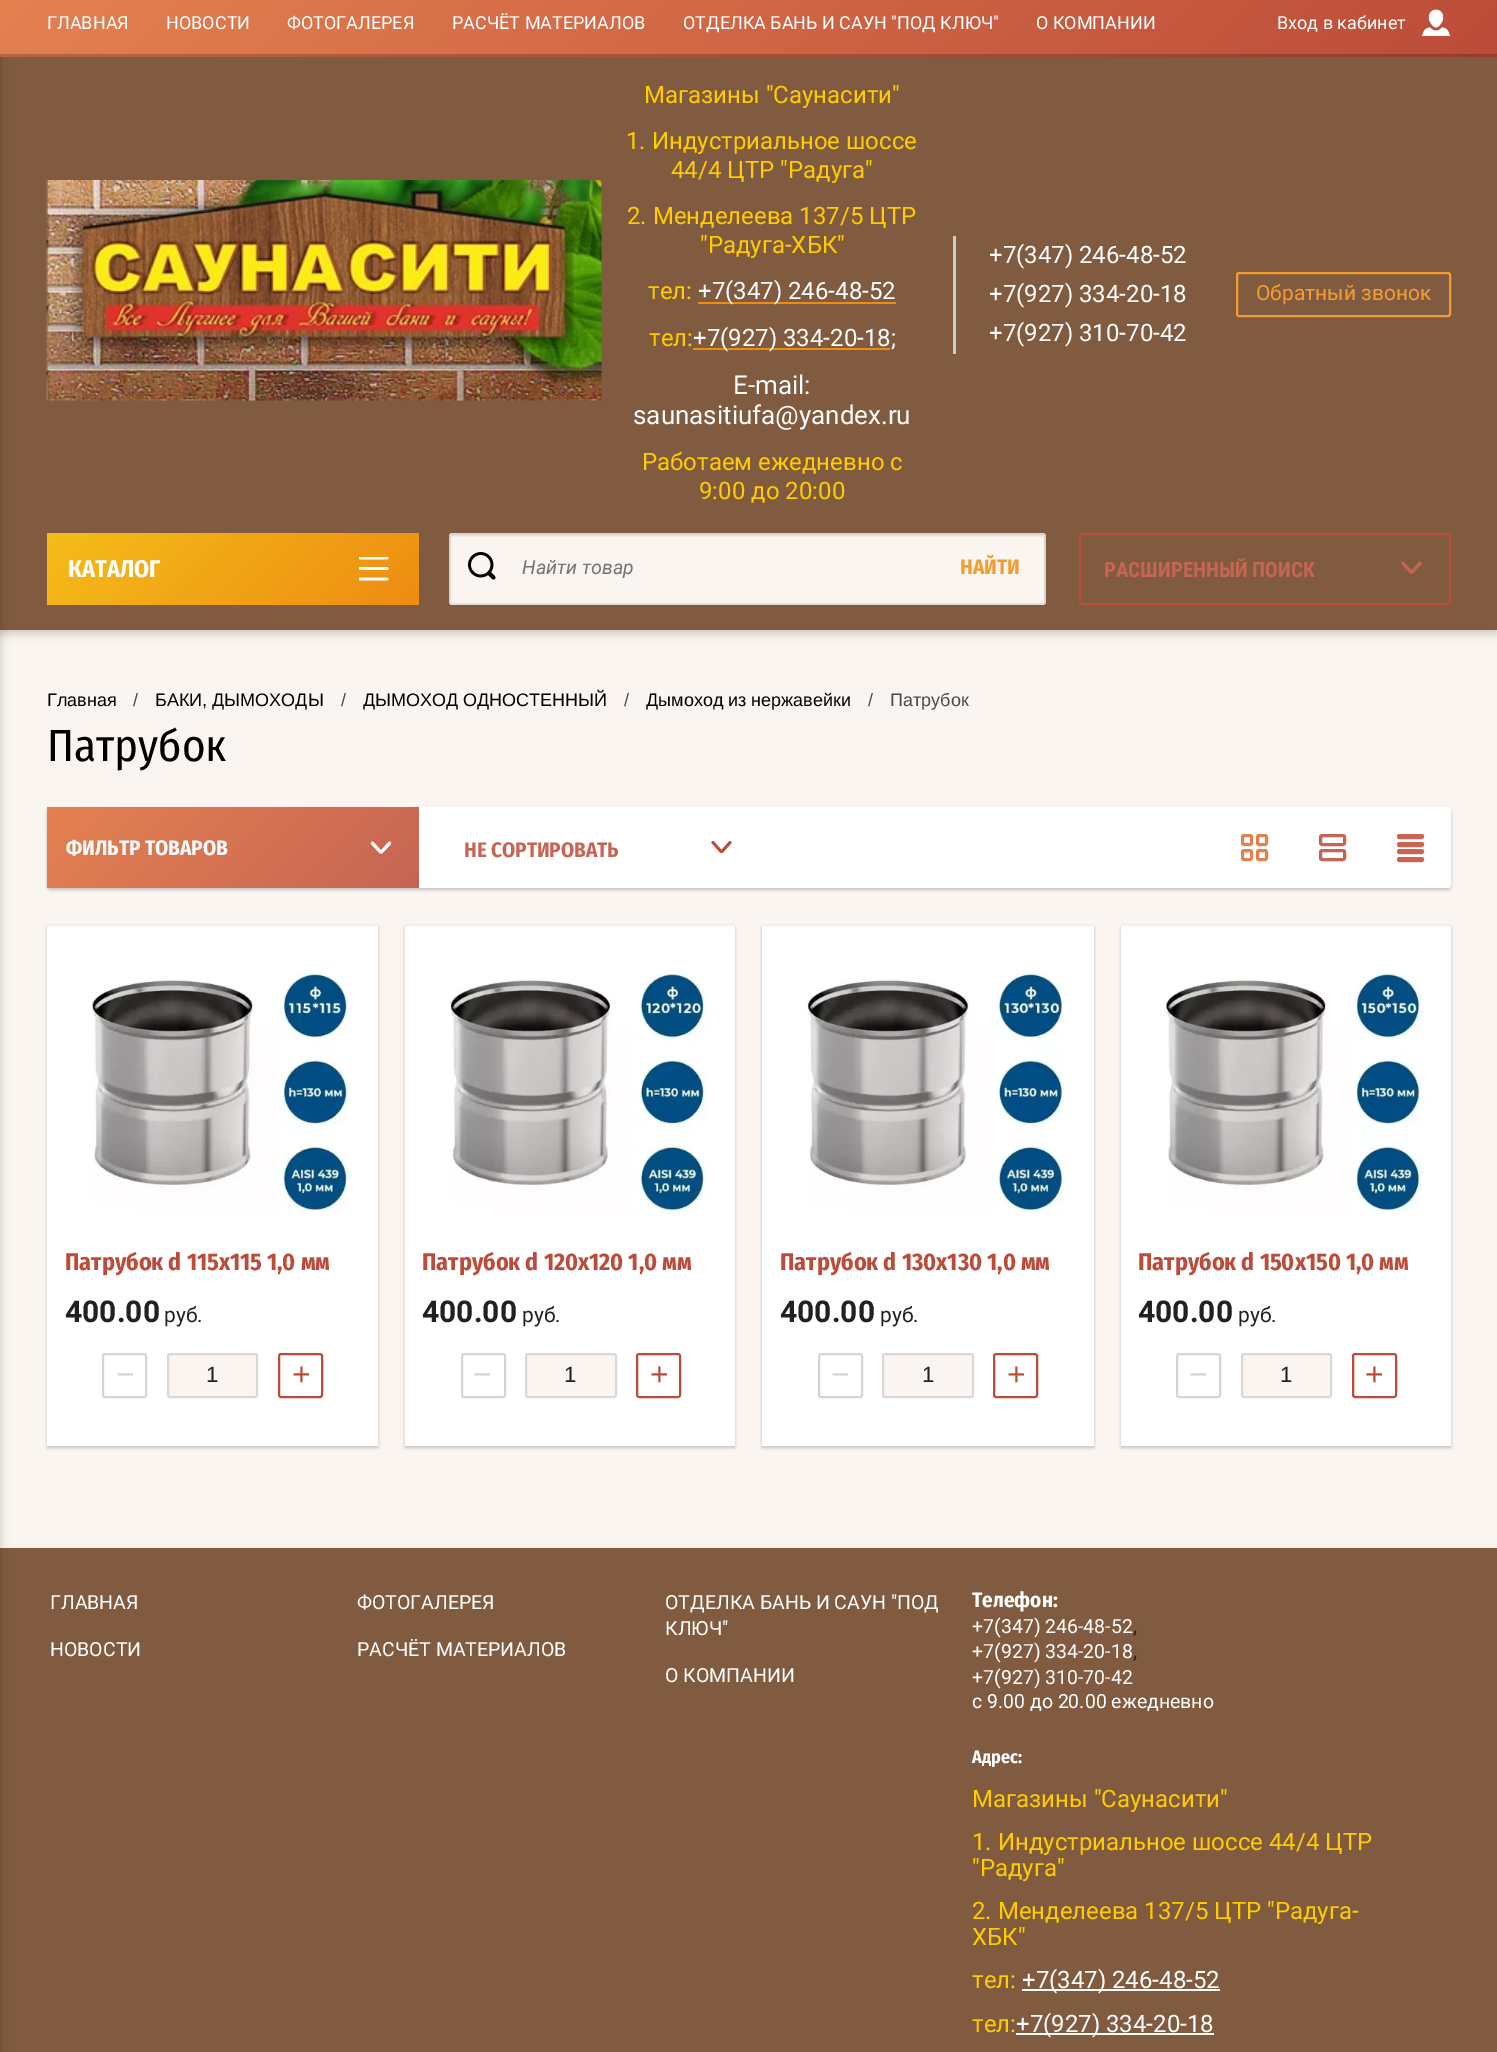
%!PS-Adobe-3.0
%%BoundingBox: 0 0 1497 2052
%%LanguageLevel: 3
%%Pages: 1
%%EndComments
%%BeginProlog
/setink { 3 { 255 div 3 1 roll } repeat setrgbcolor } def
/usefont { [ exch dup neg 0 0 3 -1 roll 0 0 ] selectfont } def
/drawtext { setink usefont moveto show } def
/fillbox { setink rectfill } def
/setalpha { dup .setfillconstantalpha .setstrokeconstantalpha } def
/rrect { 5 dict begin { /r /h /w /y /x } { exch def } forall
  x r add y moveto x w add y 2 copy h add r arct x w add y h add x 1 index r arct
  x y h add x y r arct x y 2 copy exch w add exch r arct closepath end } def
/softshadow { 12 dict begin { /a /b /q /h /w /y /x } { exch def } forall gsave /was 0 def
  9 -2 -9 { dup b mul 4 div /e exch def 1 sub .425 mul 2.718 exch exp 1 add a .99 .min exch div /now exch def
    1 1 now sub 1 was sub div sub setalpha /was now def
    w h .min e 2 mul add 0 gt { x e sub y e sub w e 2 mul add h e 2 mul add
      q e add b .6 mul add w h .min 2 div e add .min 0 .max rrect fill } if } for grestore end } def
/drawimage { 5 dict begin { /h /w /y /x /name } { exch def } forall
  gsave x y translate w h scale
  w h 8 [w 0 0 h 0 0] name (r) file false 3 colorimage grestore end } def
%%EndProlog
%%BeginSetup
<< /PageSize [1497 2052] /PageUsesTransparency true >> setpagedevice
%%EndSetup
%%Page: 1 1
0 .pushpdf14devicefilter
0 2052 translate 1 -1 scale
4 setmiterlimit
0 0 1497 2052 250 245 241 fillbox
0 0 0 setink
0 -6 1497 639 0 4.5 0.2 softshadow
0 57 1497 573 129 91 63 fillbox
0 1548 1497 504 129 91 63 fillbox
0 0 0 setink
-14 3 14 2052 0 4.5 0.2 softshadow
gsave 0 0 moveto 1497 0 lineto 1497 57 lineto 0 57 lineto closepath clip newpath
<< /ShadingType 2 /ColorSpace /DeviceRGB /Coords [358 -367 1139 415] /Extend [true true] /Function << /FunctionType 2 /Domain [0 1] /C0 [0.894 0.506 0.318] /C1 [0.737 0.298 0.224] /N 1 >> >> shfill grestore
0.2 setalpha
0 54 1497 3 0 0 0 fillbox
1 setalpha
(ГЛАВНАЯ) 47 29 /Roboto-Regular 18 255 255 255 drawtext
(НОВОСТИ) 166 29 /Roboto-Regular 18 255 255 255 drawtext
(ФОТОГАЛЕРЕЯ) 287 29 /Roboto-Regular 18 255 255 255 drawtext
(РАСЧЁТ МАТЕРИАЛОВ) 452 29 /Roboto-Regular 18 255 255 255 drawtext
(ОТДЕЛКА БАНЬ И САУН "ПОД КЛЮЧ") 683 29 /Roboto-Regular 18 255 255 255 drawtext
(О КОМПАНИИ) 1036 29 /Roboto-Regular 18 255 255 255 drawtext
(assets/img1.rgb) 1422 9 28 27 drawimage
(Вход в кабинет) 1277 29 /Roboto-Regular 18 255 255 255 drawtext
(assets/img2.rgb) 46 180 556 221 drawimage
(Магазины "Саунасити") 644 103 /Roboto-Regular 24 255 204 0 drawtext
(1. Индустриальное шоссе) 626 149 /Roboto-Regular 24 255 204 0 drawtext
(44/4 ЦТР "Радуга") 671 178 /Roboto-Regular 24 255 204 0 drawtext
(2. Менделеева 137/5 ЦТР) 627 224 /Roboto-Regular 24 255 204 0 drawtext
("Радуга-ХБК") 700 253 /Roboto-Regular 24 255 204 0 drawtext
(тел:) 648 299 /Roboto-Regular 24 255 204 0 drawtext
698 302 198 2 238 140 18 fillbox
(+7\(347\) 246-48-52) 698 299 /Roboto-Regular 24 255 255 255 drawtext
(тел:) 649 346 /Roboto-Regular 24 255 204 0 drawtext
693 348 197 2 238 140 18 fillbox
(+7\(927\) 334-20-18;) 693 346 /Roboto-Regular 24 255 255 255 drawtext
(E-mail:) 733 394 /Roboto-Regular 26 255 255 255 drawtext
(saunasitiufa@yandex.ru) 633 424 /Roboto-Regular 26 255 255 255 drawtext
(Работаем ежедневно с) 642 470 /Roboto-Regular 24 255 204 0 drawtext
(9:00 до 20:00) 699 499 /Roboto-Regular 24 255 204 0 drawtext
953 236 3 118 204 204 204 fillbox
(+7\(347\) 246-48-52) 989 263 /Roboto-Regular 24 255 255 255 drawtext
(+7\(927\) 334-20-18) 989 302 /Roboto-Regular 24 255 255 255 drawtext
(+7\(927\) 310-70-42) 989 341 /Roboto-Regular 24 255 255 255 drawtext
243 157 49 setink
2 setlinewidth
1237 273 213 43 2 rrect stroke
(Обратный звонок) 1256 300 /Roboto-Regular 21 243 157 49 drawtext
gsave 47 533 372 72 3 rrect clip newpath
<< /ShadingType 2 /ColorSpace /DeviceRGB /Coords [121 458 344 680] /Extend [true true] /Function << /FunctionType 2 /Domain [0 1] /C0 [0.961 0.741 0.098] /C1 [0.933 0.549 0.071] /N 1 >> >> shfill grestore
(КАТАЛОГ) 68 577 /FiraSansCondensed-Bold 24 255 255 255 drawtext
(assets/img3.rgb) 359 557 30 24 drawimage
250 245 241 setink
449 533 597 72 3 rrect fill
0.1 setalpha
32 32 32 setink
450 534 595 70 2 rrect stroke
0.05 setalpha
0 0 0 setink
452 537 moveto 1042 537 lineto 1044 538 lineto 1044 605 lineto 1045 605 1046 603 1046 602 curveto 1046 536 lineto 1046 534 1045 533 1043 533 curveto 452 533 lineto 450 533 449 534 449 536 curveto 449 602 lineto 449 603 449 604 450 604 curveto 450 538 lineto closepath fill
1 setalpha
(assets/img4.rgb) 468 552 28 28 drawimage
(Найти товар) 522 574 /Roboto-Italic 19.5 117 117 117 drawtext
(НАЙТИ) 960 574 /FiraSansCondensed-Bold 21 243 157 49 drawtext
188 76 57 setink
1080 534 370 70 2 rrect stroke
(РАСШИРЕННЫЙ ПОИСК) 1104 577 /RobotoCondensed-Bold 21 198 101 84 drawtext
1421 564.5 moveto 1413 573 lineto 1412.5 574 1411.5 574 1411 573 curveto 1410.5 572.5 1410 571.5 1411 571 curveto 1419 562.5 lineto 1419.5 561.5 1420.5 561.5 1421 562.5 curveto 1421.5 563 1422 564 1421 564.5 curveto closepath fill
1404 562.5 moveto 1412 571 lineto 1413 571.5 1412.5 572.5 1412 573 curveto 1411.5 574 1410.5 574 1410 573 curveto 1402 564.5 lineto 1401 564 1401.5 563 1402 562.5 curveto 1402.5 561.5 1403.5 561.5 1404 562.5 curveto closepath fill
(Главная) 47 706 /LiberationSans-Regular 18 0 0 0 drawtext
(/) 133 706 /LiberationSans-Regular 18 74 74 74 drawtext
(БАКИ, ДЫМОХОДЫ) 155 706 /LiberationSans-Regular 18 0 0 0 drawtext
(/) 341 706 /LiberationSans-Regular 18 74 74 74 drawtext
(ДЫМОХОД ОДНОСТЕННЫЙ) 363 706 /LiberationSans-Regular 18 0 0 0 drawtext
(/) 624 706 /LiberationSans-Regular 18 74 74 74 drawtext
(Дымоход из нержавейки) 646 706 /LiberationSans-Regular 18 0 0 0 drawtext
(/) 868 706 /LiberationSans-Regular 18 74 74 74 drawtext
(Патрубок) 890 706 /LiberationSans-Regular 18 74 74 74 drawtext
(Патрубок) 47 761 /FiraSansCondensed-Regular 45 0 0 0 drawtext
47 809 1404 81 3 1.5 0.2 softshadow
255 255 255 setink
47 807 1404 81 3 rrect fill
gsave 47 807 372 81 3 rrect clip newpath
<< /ShadingType 2 /ColorSpace /DeviceRGB /Coords [119 734 346 961] /Extend [true true] /Function << /FunctionType 2 /Domain [0 1] /C0 [0.894 0.506 0.318] /C1 [0.776 0.396 0.329] /N 1 >> >> shfill grestore
(ФИЛЬТР ТОВАРОВ) 66 855 /FiraSansCondensed-Bold 21 255 255 255 drawtext
390.5 844.5 moveto 382.5 853 lineto 382 853.5 381 853.5 380.5 853 curveto 380 852.5 379.5 851.5 380.5 851 curveto 388.5 842 lineto 389 841.5 390 841.5 390.5 842 curveto 391 842.5 391.5 843.5 390.5 844.5 curveto closepath fill
373.5 842 moveto 381.5 851 lineto 382.5 851.5 382 852.5 381.5 853 curveto 381 853.5 380 853.5 379.5 853 curveto 371.5 844.5 lineto 370.5 843.5 371 842.5 371.5 842 curveto 372 841.5 373 841.5 373.5 842 curveto closepath fill
(НЕ СОРТИРОВАТЬ) 464 857 /FiraSansCondensed-Bold 21 198 101 84 drawtext
188 76 57 setink
731 843.5 moveto 723 852.5 lineto 722.5 853 721.5 853 721 852.5 curveto 720.5 852 720 851 721 850.5 curveto 729 841.5 lineto 729.5 841 730.5 841 731 841.5 curveto 731.5 842 732 843 731 843.5 curveto closepath fill
714 841.5 moveto 722 850.5 lineto 723 851 722.5 852 722 852.5 curveto 721.5 853 720.5 853 720 852.5 curveto 712 843.5 lineto 711 843 711.5 842 712 841.5 curveto 712.5 841 713.5 841 714 841.5 curveto closepath fill
228 129 81 setink
3 setlinewidth
1242.5 835.5 9 9 1.5 rrect stroke
1242.5 850.5 9 9 1.5 rrect stroke
1257.5 835.5 9 9 1.5 rrect stroke
1257.5 850.5 9 9 1.5 rrect stroke
198 101 84 setink
1320.5 835.5 24 9 1.5 rrect stroke
1320.5 850.5 24 9 1.5 rrect stroke
2 setlinewidth
1398 835 25 3 1.5 rrect stroke
1398 836 24 1 198 101 84 fillbox
1398 843 25 3 1.5 rrect stroke
1398 844 24 1 198 101 84 fillbox
1398 850 25 3 1.5 rrect stroke
1398 851 24 1 198 101 84 fillbox
1398 858 25 3 1.5 rrect stroke
1398 859 24 1 198 101 84 fillbox
0 0 0 setink
47 927 331 521 0 1.5 0.2 softshadow
47 926 331 520 255 255 255 fillbox
(assets/img5.rgb) 91 973 261 240 drawimage
(Патрубок d 115х115 1,0 мм) 65 1270 /FiraSansCondensed-Bold 24 188 76 57 drawtext
(400.00) 65 1322 /Roboto-Bold 30 33 33 33 drawtext
(руб.) 164 1322 /Roboto-Regular 21 33 33 33 drawtext
213 213 213 setink
103 1354 43 43 2 rrect stroke
(−) 116 1385 /LiberationSans-Regular 32 213 213 213 drawtext
250 245 241 setink
167 1353 91 45 3 rrect fill
0.12 setalpha
0 0 0 setink
168 1354 89 43 2 rrect stroke
1 setalpha
(1) 206 1382 /LiberationSans-Regular 22 33 33 33 drawtext
188 76 57 setink
279 1354 43 43 2 rrect stroke
(+) 292 1385 /LiberationSans-Regular 32 188 76 57 drawtext
0 0 0 setink
405 927 330 521 0 1.5 0.2 softshadow
405 926 330 520 255 255 255 fillbox
(assets/img6.rgb) 450 973 257 242 drawimage
(Патрубок d 120х120 1,0 мм) 422 1270 /FiraSansCondensed-Bold 24 188 76 57 drawtext
(400.00) 422 1322 /Roboto-Bold 30 33 33 33 drawtext
(руб.) 522 1322 /Roboto-Regular 21 33 33 33 drawtext
213 213 213 setink
462 1354 43 43 2 rrect stroke
(−) 473 1385 /LiberationSans-Regular 32 213 213 213 drawtext
250 245 241 setink
525 1353 92 45 3 rrect fill
0.12 setalpha
0 0 0 setink
526 1354 90 43 2 rrect stroke
1 setalpha
(1) 564 1382 /LiberationSans-Regular 22 33 33 33 drawtext
188 76 57 setink
637 1354 43 43 2 rrect stroke
(+) 650 1385 /LiberationSans-Regular 32 188 76 57 drawtext
0 0 0 setink
762 927 332 521 0 1.5 0.2 softshadow
762 926 332 520 255 255 255 fillbox
(assets/img7.rgb) 807 973 257 241 drawimage
(Патрубок d 130х130 1,0 мм) 780 1270 /FiraSansCondensed-Bold 24 188 76 57 drawtext
(400.00) 780 1322 /Roboto-Bold 30 33 33 33 drawtext
(руб.) 880 1322 /Roboto-Regular 21 33 33 33 drawtext
213 213 213 setink
819 1354 43 43 2 rrect stroke
(−) 831 1385 /LiberationSans-Regular 32 213 213 213 drawtext
250 245 241 setink
882 1353 92 45 3 rrect fill
0.12 setalpha
0 0 0 setink
883 1354 90 43 2 rrect stroke
1 setalpha
(1) 922 1382 /LiberationSans-Regular 22 33 33 33 drawtext
188 76 57 setink
994 1354 43 43 2 rrect stroke
(+) 1007 1385 /LiberationSans-Regular 32 188 76 57 drawtext
0 0 0 setink
1121 927 330 521 0 1.5 0.2 softshadow
1121 926 330 520 255 255 255 fillbox
(assets/img8.rgb) 1165 973 262 242 drawimage
(Патрубок d 150х150 1,0 мм) 1138 1270 /FiraSansCondensed-Bold 24 188 76 57 drawtext
(400.00) 1138 1322 /Roboto-Bold 30 33 33 33 drawtext
(руб.) 1238 1322 /Roboto-Regular 21 33 33 33 drawtext
213 213 213 setink
1177 1354 43 43 2 rrect stroke
(−) 1189 1385 /LiberationSans-Regular 32 213 213 213 drawtext
250 245 241 setink
1241 1353 91 45 3 rrect fill
0.12 setalpha
0 0 0 setink
1242 1354 89 43 2 rrect stroke
1 setalpha
(1) 1280 1382 /LiberationSans-Regular 22 33 33 33 drawtext
188 76 57 setink
1353 1354 43 43 2 rrect stroke
(+) 1365 1385 /LiberationSans-Regular 32 188 76 57 drawtext
(ГЛАВНАЯ) 50 1609 /Roboto-Regular 19.5 255 255 255 drawtext
(НОВОСТИ) 50 1656 /Roboto-Regular 19.5 255 255 255 drawtext
(ФОТОГАЛЕРЕЯ) 357 1609 /Roboto-Regular 19.5 255 255 255 drawtext
(РАСЧЁТ МАТЕРИАЛОВ) 357 1656 /Roboto-Regular 19.5 255 255 255 drawtext
(ОТДЕЛКА БАНЬ И САУН "ПОД) 665 1609 /Roboto-Regular 19.5 255 255 255 drawtext
(КЛЮЧ") 665 1635 /Roboto-Regular 19.5 255 255 255 drawtext
(О КОМПАНИИ) 665 1682 /Roboto-Regular 19.5 255 255 255 drawtext
(Телефон:) 972 1607 /FiraSansCondensed-Bold 21 255 255 255 drawtext
(+7\(347\) 246-48-52) 972 1633 /Roboto-Regular 19.5 255 255 255 drawtext
(,) 1133 1633 /Roboto-Regular 21 33 33 33 drawtext
(+7\(927\) 334-20-18) 972 1658 /Roboto-Regular 19.5 255 255 255 drawtext
(,) 1133 1658 /Roboto-Regular 21 33 33 33 drawtext
(+7\(927\) 310-70-42) 972 1684 /Roboto-Regular 19.5 255 255 255 drawtext
(с 9.00 до 20.00 ежедневно) 972 1708 /Roboto-Regular 19.5 255 255 255 drawtext
(Адрес:) 972 1763 /FiraSansCondensed-Bold 18 255 255 255 drawtext
(Магазины "Саунасити") 972 1807 /Roboto-Regular 24 255 204 0 drawtext
(1. Индустриальное шоссе 44/4 ЦТР) 972 1850 /Roboto-Regular 24 255 204 0 drawtext
("Радуга") 972 1876 /Roboto-Regular 24 255 204 0 drawtext
(2. Менделеева 137/5 ЦТР "Радуга-) 972 1919 /Roboto-Regular 24 255 204 0 drawtext
(ХБК") 972 1945 /Roboto-Regular 24 255 204 0 drawtext
(тел:) 972 1988 /Roboto-Regular 24 255 204 0 drawtext
1022 1989 198 2 255 255 255 fillbox
(+7\(347\) 246-48-52) 1022 1988 /Roboto-Regular 24 255 255 255 drawtext
(тел:) 972 2032 /Roboto-Regular 24 255 204 0 drawtext
1016 2033 198 2 255 255 255 fillbox
(+7\(927\) 334-20-18) 1016 2032 /Roboto-Regular 24 255 255 255 drawtext
.poppdf14devicefilter showpage
%%EOF
